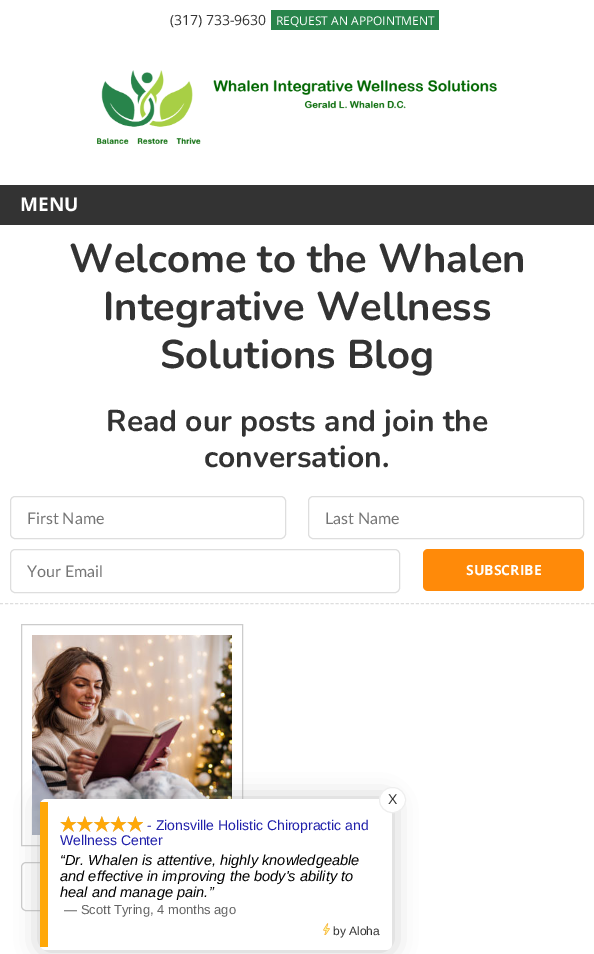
%!PS-Adobe-3.0
%%BoundingBox: 0 0 594 954
%%LanguageLevel: 3
%%Pages: 1
%%EndComments
%%BeginProlog
/setink { 3 { 255 div 3 1 roll } repeat setrgbcolor } def
/usefont { [ exch dup neg 0 0 3 -1 roll 0 0 ] selectfont } def
/drawtext { setink usefont moveto show } def
/fillbox { setink rectfill } def
/setalpha { dup .setfillconstantalpha .setstrokeconstantalpha } def
/rrect { 5 dict begin { /r /h /w /y /x } { exch def } forall
  x r add y moveto x w add y 2 copy h add r arct x w add y h add x 1 index r arct
  x y h add x y r arct x y 2 copy exch w add exch r arct closepath end } def
/softshadow { 12 dict begin { /a /b /q /h /w /y /x } { exch def } forall gsave /was 0 def
  9 -2 -9 { dup b mul 4 div /e exch def 1 sub .425 mul 2.718 exch exp 1 add a .99 .min exch div /now exch def
    1 1 now sub 1 was sub div sub setalpha /was now def
    w h .min e 2 mul add 0 gt { x e sub y e sub w e 2 mul add h e 2 mul add
      q e add b .6 mul add w h .min 2 div e add .min 0 .max rrect fill } if } for grestore end } def
/drawimage { 5 dict begin { /h /w /y /x /name } { exch def } forall
  gsave x y translate w h scale
  w h 8 [w 0 0 h 0 0] name (r) file false 3 colorimage grestore end } def
%%EndProlog
%%BeginSetup
<< /PageSize [594 954] /PageUsesTransparency true >> setpagedevice
%%EndSetup
%%Page: 1 1
0 .pushpdf14devicefilter
0 954 translate 1 -1 scale
4 setmiterlimit
0 0 594 954 255 255 255 fillbox
(\(317\) 733-9630) 170 25 /OpenSans-Regular 14 51 51 51 drawtext
271 10 168 20 40 132 75 fillbox
(REQUEST AN APPOINTMENT) 276 25 /OpenSans-Regular 12 255 255 255 drawtext
(assets/img1.rgb) 97 70 400 74 drawimage
0 185 594 40 51 51 51 fillbox
(MENU) 20 211 /OpenSans-Bold 19 255 255 255 drawtext
222 222 222 setink
[3 2.01] 0 setdash
0 603.5 moveto 594 603.5 lineto stroke
(Welcome to the Whalen) 69 272 /Nunito-Bold 40 51 51 51 drawtext
(Integrative Wellness) 103 320 /Nunito-Bold 40 51 51 51 drawtext
(Solutions Blog) 160 368 /Nunito-Bold 40 51 51 51 drawtext
(Read our posts and join the) 106 431 /Nunito-Bold 30 51 51 51 drawtext
(conversation.) 204 467 /Nunito-Bold 30 51 51 51 drawtext
222 222 222 setink
[] 0 setdash
10.5 496.5 275 42 4.5 rrect stroke
(First Name) 27 524 /Lato-Regular 16 117 117 117 drawtext
222 222 222 setink
308.5 496.5 275 42 4.5 rrect stroke
(Last Name) 325 524 /Lato-Regular 16 117 117 117 drawtext
222 222 222 setink
10.5 549.5 389 43 4.5 rrect stroke
(Your Email) 27 577 /Lato-Regular 16 117 117 117 drawtext
255 138 9 setink
423 549 161 42 5 rrect fill
(SUBSCRIBE) 466 575 /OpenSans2-Bold 14 255 255 255 drawtext
204 204 204 setink
21.5 624.5 221 221 rectstroke
(assets/img2.rgb) 32 635 200 200 drawimage
21.5 862.5 145 48 4.5 rrect stroke
160 160 160 setink
40 799 352 151 6 12 0.6 softshadow
255 255 255 setink
40 799 352 151 6 rrect fill
40 802 8 145 255 168 8 fillbox
255 255 255 setink
379.5 787.5 26 25 12.5 rrect gsave fill grestore
238 238 238 setink
stroke
(X) 388 804 /LiberationSans-Regular 14 51 51 51 drawtext
(assets/img3.rgb) 60 816 83 16 drawimage
(assets/img4.rgb) 60 816 83 16 drawimage
(- Zionsville Holistic Chiropractic and) 147 830 /LiberationSans-Regular 14 32 32 170 drawtext
(Wellness Center) 60 845 /LiberationSans-Regular 14 32 32 170 drawtext
(“Dr. Whalen is attentive, highly knowledgeable) 60 865 /LiberationSans-Italic 14.6 0 0 0 drawtext
(and effective in improving the body's ability to) 60 881 /LiberationSans-Italic 14.6 0 0 0 drawtext
(heal and manage pain.”) 60 897 /LiberationSans-Italic 14.6 0 0 0 drawtext
(— Scott Tyring, 4 months ago) 64 914 /LiberationSans-Regular 13 100 100 100 drawtext
(assets/img5.rgb) 323 923 7 12 drawimage
(by Aloha) 333 935 /LiberationSans-Regular 12 51 51 51 drawtext
.poppdf14devicefilter showpage
%%EOF
